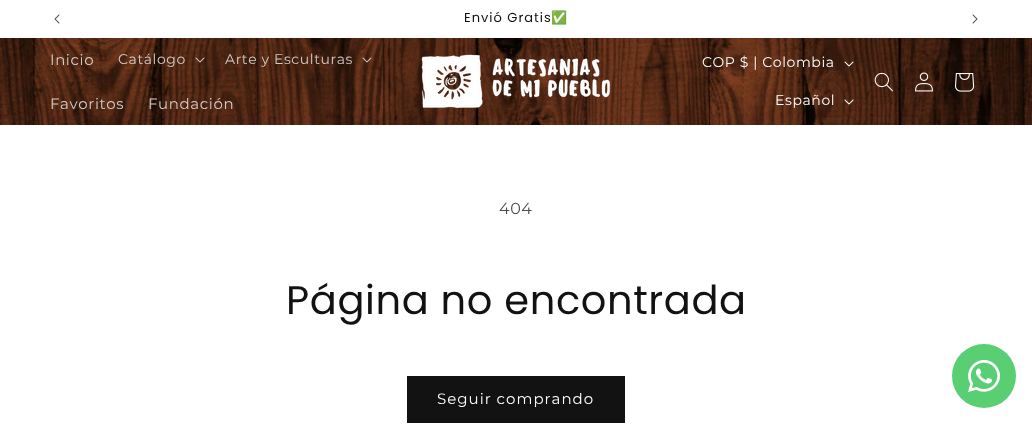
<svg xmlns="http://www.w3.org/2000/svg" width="1032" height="424">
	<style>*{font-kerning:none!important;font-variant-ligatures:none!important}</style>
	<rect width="100%" height="100%" fill="#FFFFFF" />
	<image x="54" y="14" width="6" height="10" href="assets/img1.png" />
	<text x="464" y="22" font-family="Poppins" font-size="13" letter-spacing="1" fill="#121212">Envió Gratis</text>
	<text x="551" y="22" font-family="Noto Color Emoji" font-size="13" letter-spacing="1" fill="#121212">✅</text>
	<image x="972" y="14" width="6" height="10" href="assets/img2.png" />
	<image x="0" y="38" width="1032" height="87" href="assets/img3.png" />
	<text x="50" y="65" font-family="Montserrat" font-size="15" letter-spacing="0.6" fill="#D5CAC5">Inicio</text>
	<text x="118" y="64" font-family="Montserrat" font-size="14" letter-spacing="0.6" fill="#D5CAC5">Catálogo</text>
	<image x="195" y="57" width="10" height="6" href="assets/img4.png" />
	<text x="225" y="64" font-family="Montserrat" font-size="14" letter-spacing="0.6" fill="#D5CAC5">Arte y Esculturas</text>
	<image x="362" y="57" width="10" height="6" href="assets/img5.png" />
	<g font-family="Montserrat" font-size="15" letter-spacing="0.6" fill="#D5CAC5">
		<text x="50" y="109">Favoritos</text>
		<text x="148" y="109">Fundación</text>
	</g>
	<image x="421" y="54" width="190" height="54" href="assets/img6.png" />
	<text x="702" y="67" font-family="Montserrat" font-size="14" letter-spacing="0.6" fill="#FFFFFF">COP $ | Colombia</text>
	<image x="844" y="61" width="10" height="6" href="assets/img7.png" />
	<text x="775" y="105" font-family="Montserrat" font-size="14" letter-spacing="0.6" fill="#FFFFFF">Español</text>
	<image x="844" y="99" width="10" height="6" href="assets/img8.png" />
	<image x="874" y="72" width="19" height="20" href="assets/img9.png" />
	<image x="915" y="72" width="18" height="20" href="assets/img10.png" />
	<image x="955" y="73" width="20" height="19" href="assets/img11.png" />
	<text x="499" y="214" font-family="Montserrat" font-size="16" letter-spacing="0.6" fill="#4D4D4D">404</text>
	<text x="286" y="314" font-family="Poppins" font-size="40" letter-spacing="0.6" fill="#121212">Página no encontrada</text>
	<rect x="407" y="376" width="218" height="47" fill="#121212" />
	<text x="437" y="404" font-family="Montserrat" font-size="15" letter-spacing="1" fill="#FFFFFF">Seguir comprando</text>
	<circle cx="984" cy="376" r="32" fill="#59CE72" />
	<image x="968" y="360" width="32" height="32" href="assets/img12.png" />
</svg>
